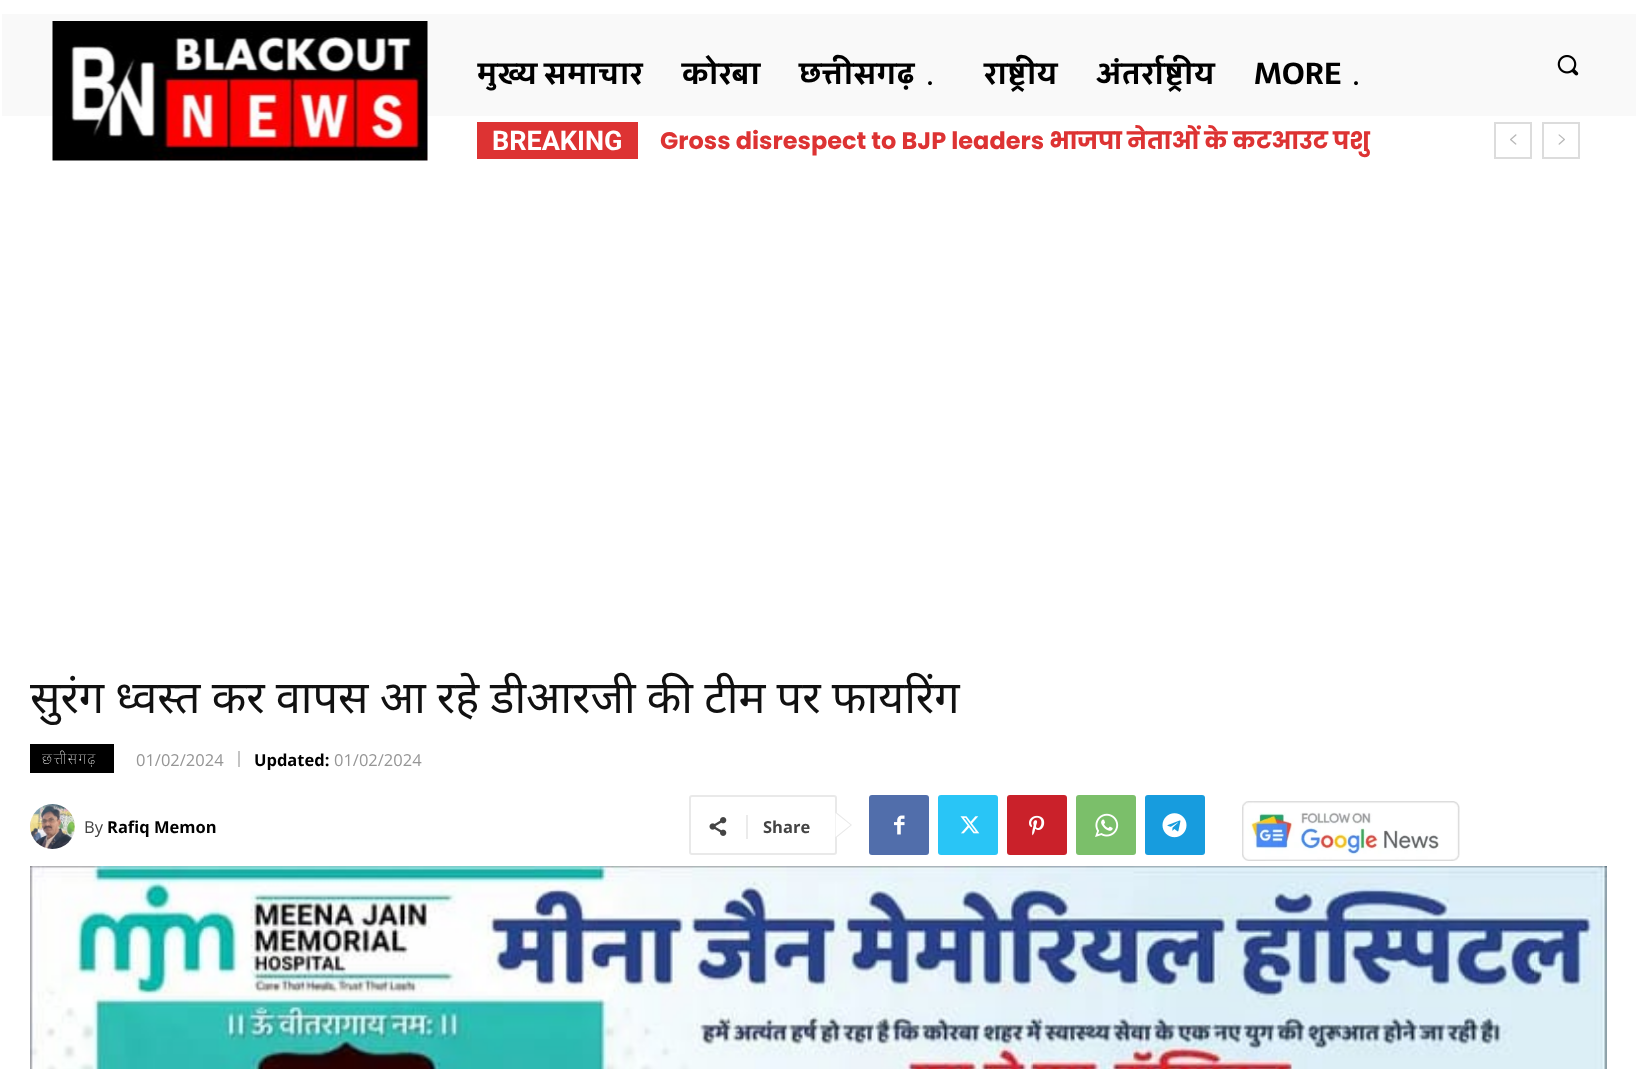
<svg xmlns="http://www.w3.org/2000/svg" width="1636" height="1069">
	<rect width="100%" height="100%" fill="#FFFFFF" />
	<rect x="2" y="14" width="1634" height="102" fill="#F9F9F9" />
	<image x="52" y="21" width="376" height="140" href="assets/img1.png" />
	<g font-family="Sarala" font-size="30" font-weight="700" fill="#000000">
		<text x="477" y="84">मुख्य समाचार</text>
		<text x="682" y="84">कोरबा</text>
		<text x="799" y="84">छत्तीसगढ़</text>
	</g>
	<image x="928" y="81" width="4" height="5" href="assets/img2.png" />
	<g font-family="Sarala" font-size="30" font-weight="700" fill="#000000">
		<text x="984" y="84">राष्ट्रीय</text>
		<text x="1096" y="84">अंतर्राष्ट्रीय</text>
		<text x="1254" y="84">MORE</text>
	</g>
	<image x="1354" y="81" width="4" height="5" href="assets/img2.png" />
	<image x="1557" y="55" width="22" height="21" href="assets/img3.png" />
	<rect x="477" y="122" width="161" height="37" fill="#DD3333" />
	<text x="492" y="150" font-family="Roboto" font-size="27" font-weight="700" fill="#FFFFFF">BREAKING</text>
	<text x="660" y="149" font-family="Poppins" font-size="24" font-weight="700" fill="#DD3333">Gross disrespect to BJP leaders भाजपा नेताओं के कटआउट पशु</text>
	<rect x="1495" y="123" width="36" height="35" fill="none" stroke="#DCDCDC" stroke-width="2" />
	<image x="1510" y="134" width="7" height="11" href="assets/img4.png" />
	<rect x="1543" y="123" width="36" height="35" fill="none" stroke="#DCDCDC" stroke-width="2" />
	<image x="1558" y="134" width="7" height="11" href="assets/img5.png" />
	<text x="30" y="713" word-spacing="-0.5" font-family="Noto Sans" font-size="45" fill="#111111">सुरंग ध्वस्त कर वापस आ रहे डीआरजी की टीम पर फायरिंग</text>
	<rect x="30" y="744" width="84" height="29" fill="#000000" />
	<text x="42" y="764" font-family="Noto Sans" font-size="15" font-weight="100" letter-spacing="1.5" fill="#FFFFFF">छत्तीसगढ़</text>
	<text x="136" y="766" font-family="Open Sans" font-size="16.5" fill="#969696">01/02/2024</text>
	<rect x="238" y="751" width="2" height="16" fill="#C4C4C4" />
	<text x="254" y="766" font-family="Open Sans" font-size="16.5" font-weight="700" fill="#000000">Updated:</text>
	<text x="334" y="766" font-family="Open Sans" font-size="16.5" fill="#969696">01/02/2024</text>
	<image x="30" y="804" width="45" height="45" href="assets/img6.png" />
	<text x="84" y="833" font-family="Open Sans" font-size="16.5" fill="#444444">By</text>
	<text x="107" y="833" font-family="Open Sans" font-size="16.5" font-weight="700" fill="#000000">Rafiq Memon</text>
	<rect x="690" y="796" width="146" height="58" rx="2" fill="none" stroke="#E9E9E9" stroke-width="2" />
	<path d="M835.5 838.5V811.5L852 825Z" fill="#E9E9E9" />
	<image x="709" y="817" width="18" height="19" href="assets/img7.png" />
	<rect x="746" y="815" width="2" height="24" fill="#EBEBEB" />
	<text x="763" y="833" font-family="Open Sans" font-size="16.5" font-weight="700" fill="#444444">Share</text>
	<path d="M835.5 837V813L850.5 825Z" fill="#FFFFFF" />
	<rect x="869" y="795" width="60" height="60" rx="3" fill="#516EAB" />
	<image x="894" y="815" width="11" height="20" href="assets/img8.png" />
	<rect x="938" y="795" width="60" height="60" rx="3" fill="#29C5F6" />
	<image x="960" y="816" width="20" height="18" href="assets/img9.png" />
	<rect x="1007" y="795" width="60" height="60" rx="3" fill="#CA212A" />
	<image x="1029" y="815" width="16" height="21" href="assets/img10.png" />
	<rect x="1076" y="795" width="60" height="60" rx="3" fill="#7BBF6A" />
	<image x="1095" y="813" width="24" height="24" href="assets/img11.png" />
	<rect x="1145" y="795" width="60" height="60" rx="3" fill="#179CDE" />
	<image x="1162" y="813" width="25" height="25" href="assets/img12.png" />
	<image x="1242" y="801" width="218" height="60" href="assets/img13.png" />
	<image x="30" y="866" width="1577" height="203" href="assets/img14.png" />
</svg>
